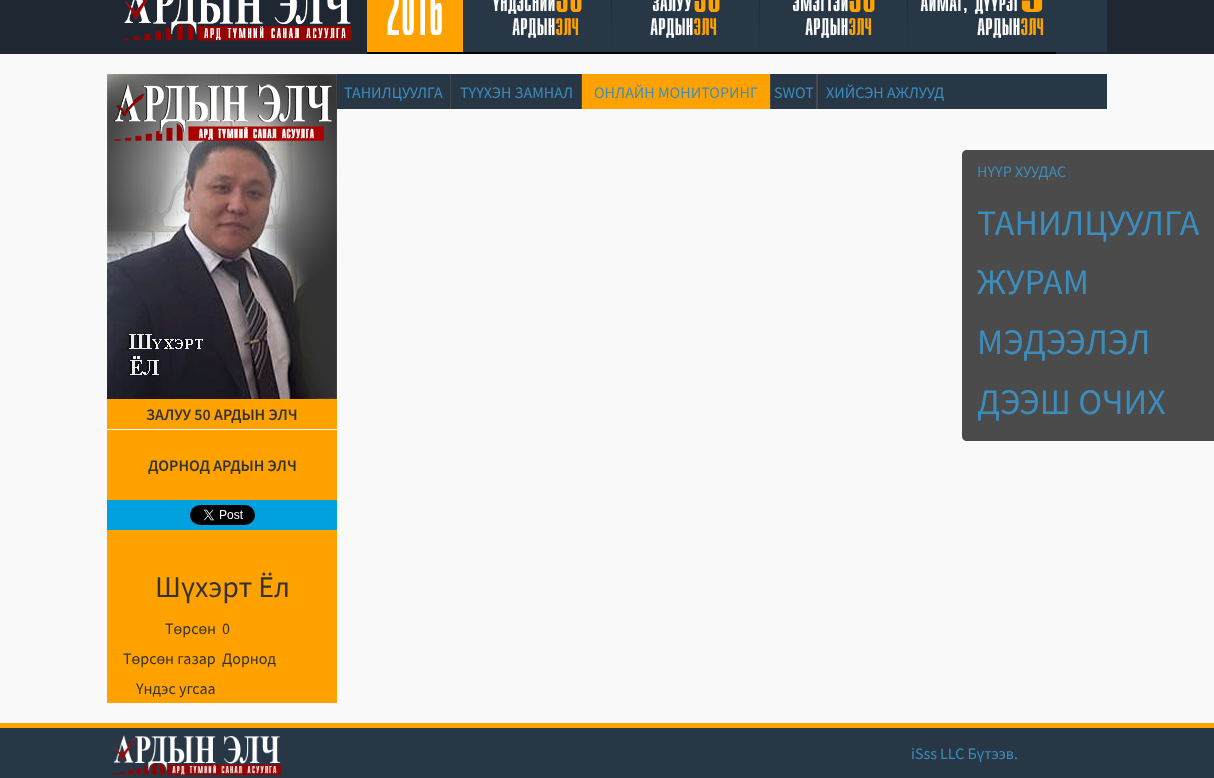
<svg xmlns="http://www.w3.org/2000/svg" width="1214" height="778">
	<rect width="100%" height="100%" fill="#F9F9F9" />
	<rect x="0" y="0" width="1214" height="54" fill="#1F2732" />
	<image x="122" y="0" width="230" height="41" href="assets/img1.png" />
	<rect x="367" y="0" width="96" height="52" fill="#FFA200" />
	<image x="387" y="0" width="55" height="35" href="assets/img2.png" />
	<image x="463" y="0" width="1" height="52" href="assets/img3.png" />
	<rect x="464" y="0" width="147" height="52" fill="#273746" />
	<image x="493" y="0" width="89" height="38" href="assets/img4.png" />
	<image x="611" y="0" width="1" height="52" href="assets/img3.png" />
	<rect x="612" y="0" width="147" height="52" fill="#273746" />
	<image x="650" y="0" width="70" height="38" href="assets/img5.png" />
	<image x="759" y="0" width="1" height="52" href="assets/img3.png" />
	<rect x="760" y="0" width="147" height="52" fill="#273746" />
	<image x="792" y="0" width="83" height="38" href="assets/img6.png" />
	<image x="907" y="0" width="1" height="52" href="assets/img3.png" />
	<rect x="908" y="0" width="199" height="52" fill="#273746" />
	<image x="920" y="0" width="124" height="38" href="assets/img7.png" />
	<rect x="367" y="52" width="689" height="2" fill="#000000" />
	<rect x="337" y="74" width="113" height="35" fill="#273746" />
	<text x="344" y="98" font-family="Source Sans Pro" font-size="16" fill="#3C8DBC">ТАНИЛЦУУЛГА</text>
	<rect x="450" y="74" width="1" height="35" fill="#494949" />
	<rect x="451" y="74" width="130" height="35" fill="#273746" />
	<text x="460" y="98" font-family="Source Sans Pro" font-size="16" fill="#3C8DBC">ТҮҮХЭН ЗАМНАЛ</text>
	<rect x="581" y="74" width="1" height="35" fill="#494949" />
	<rect x="582" y="74" width="188" height="35" fill="#FFA200" />
	<text x="594" y="98" font-family="Source Sans Pro" font-size="16" fill="#3C8DBC">ОНЛАЙН МОНИТОРИНГ</text>
	<rect x="770" y="74" width="1" height="35" fill="#494949" />
	<rect x="771" y="74" width="45" height="35" fill="#273746" />
	<text x="774" y="98" font-family="Source Sans Pro" font-size="16" fill="#3C8DBC">SWOT</text>
	<rect x="816" y="74" width="2" height="35" fill="#494949" />
	<rect x="818" y="74" width="289" height="35" fill="#273746" />
	<text x="826" y="98" font-family="Source Sans Pro" font-size="16" fill="#3C8DBC">ХИЙСЭН АЖЛУУД</text>
	<rect x="107" y="399" width="230" height="304" fill="#FFA200" />
	<image x="107" y="74" width="230" height="325" href="assets/img8.png" />
	<text x="146" y="420" font-family="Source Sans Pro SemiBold" font-size="16" font-weight="600" fill="#333333">ЗАЛУУ 50 АРДЫН ЭЛЧ</text>
	<rect x="107" y="429" width="230" height="1" fill="#FFFFFF" />
	<text x="148" y="471" font-family="Source Sans Pro SemiBold" font-size="16" font-weight="600" fill="#333333">ДОРНОД АРДЫН ЭЛЧ</text>
	<rect x="107" y="500" width="230" height="30" fill="#00A1DE" />
	<image x="190" y="505" width="65" height="20" href="assets/img9.png" />
	<text x="155" y="597" font-family="Source Sans Pro" font-size="30" fill="#333333">Шүхэрт Ёл</text>
	<g font-family="Source Sans Pro" font-size="16" fill="#333333">
		<text x="165" y="634">Төрсөн</text>
		<text x="222" y="634">0</text>
		<text x="123" y="664">Төрсөн газар</text>
		<text x="222" y="664">Дорнод</text>
		<text x="136" y="694">Үндэс угсаа</text>
	</g>
	<path d="M967 150H1214V441H967C964 441 962 439 962 436V155C962 152 964 150 967 150Z" fill="#4B4B4B" />
	<text x="977" y="177" font-family="Source Sans Pro" font-size="16" fill="#3C8DBC">НҮҮР ХУУДАС</text>
	<g font-family="Source Sans Pro" font-size="36" fill="#3C8DBC">
		<text x="977" y="235">ТАНИЛЦУУЛГА</text>
		<text x="977" y="294">ЖУРАМ</text>
		<text x="977" y="354">МЭДЭЭЛЭЛ</text>
		<text x="977" y="414">ДЭЭШ ОЧИХ</text>
	</g>
	<rect x="0" y="723" width="1214" height="5" fill="#FFA200" />
	<rect x="0" y="728" width="1214" height="50" fill="#273746" />
	<image x="112" y="735" width="170" height="40" href="assets/img10.png" />
	<text x="911" y="759" font-family="Source Sans Pro" font-size="16" fill="#3C8DBC">iSss LLC Бүтээв.</text>
</svg>
